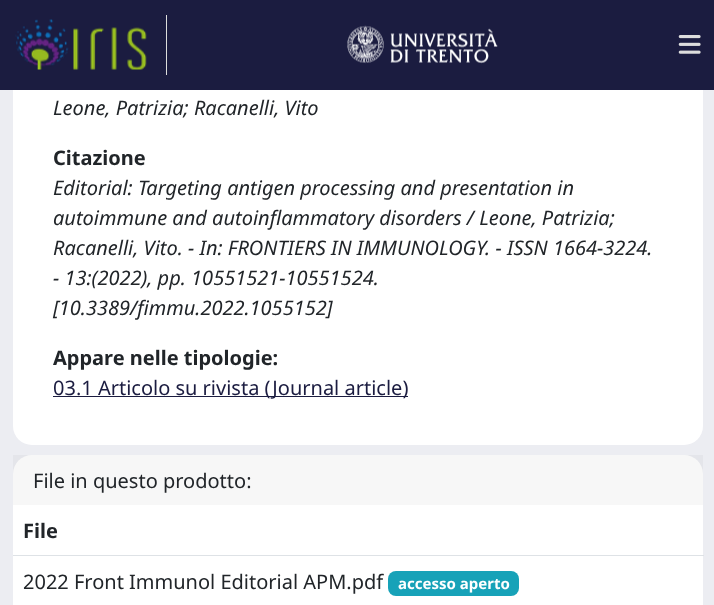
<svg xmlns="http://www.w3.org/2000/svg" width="714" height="605">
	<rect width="100%" height="100%" fill="#ECEDF2" />
	<rect x="13" y="-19" width="690" height="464" rx="19" fill="#FFFFFF" />
	<rect x="0" y="0" width="714" height="90" fill="#1B1C40" />
	<rect x="166" y="15" width="1" height="60" fill="#DDDDDD" />
	<image x="15" y="19" width="132" height="51" href="assets/img1.png" />
	<image x="347" y="25" width="151" height="39" href="assets/img2.png" />
	<image x="678" y="35" width="23" height="19" href="assets/img3.png" />
	<text x="53" y="115" font-family="Noto Sans" font-size="20" font-style="italic" fill="#212529">Leone, Patrizia; Racanelli, Vito</text>
	<text x="53" y="165" font-family="Noto Sans" font-size="20" font-weight="700" fill="#212529">Citazione</text>
	<g font-family="Noto Sans" font-size="20" font-style="italic" fill="#212529">
		<text x="53" y="195">Editorial: Targeting antigen processing and presentation in</text>
		<text x="53" y="225">autoimmune and autoinflammatory disorders / Leone, Patrizia;</text>
		<text x="53" y="255">Racanelli, Vito. - In: FRONTIERS IN IMMUNOLOGY. - ISSN 1664-3224.</text>
		<text x="53" y="285">- 13:(2022), pp. 10551521-10551524.</text>
		<text x="53" y="315">[10.3389/fimmu.2022.1055152]</text>
	</g>
	<text x="53" y="365" font-family="Noto Sans" font-size="20" font-weight="700" fill="#212529">Appare nelle tipologie:</text>
	<rect x="53" y="396" width="355" height="1" fill="#1B1C40" />
	<text x="53" y="395" font-family="Noto Sans" font-size="20" fill="#1B1C40">03.1 Articolo su rivista (Journal article)</text>
	<rect x="13" y="455" width="690" height="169" rx="19" fill="#FFFFFF" />
	<rect x="13" y="455" width="690" height="50" fill="#000000" fill-opacity="0.03" />
	<text x="33" y="488" font-family="Noto Sans" font-size="20" fill="#212529">File in questo prodotto:</text>
	<rect x="13" y="555" width="691" height="1" fill="#DEE2E6" />
	<text x="23" y="538" font-family="Noto Sans" font-size="20" font-weight="700" fill="#212529">File</text>
	<text x="23" y="589" font-family="Noto Sans" font-size="20" fill="#212529">2022 Front Immunol Editorial APM.pdf</text>
	<rect x="388" y="571" width="131" height="25" rx="8" fill="#17A2B8" />
	<text x="398" y="589" font-family="Noto Sans" font-size="15" font-weight="700" fill="#FFFFFF">accesso aperto</text>
</svg>
